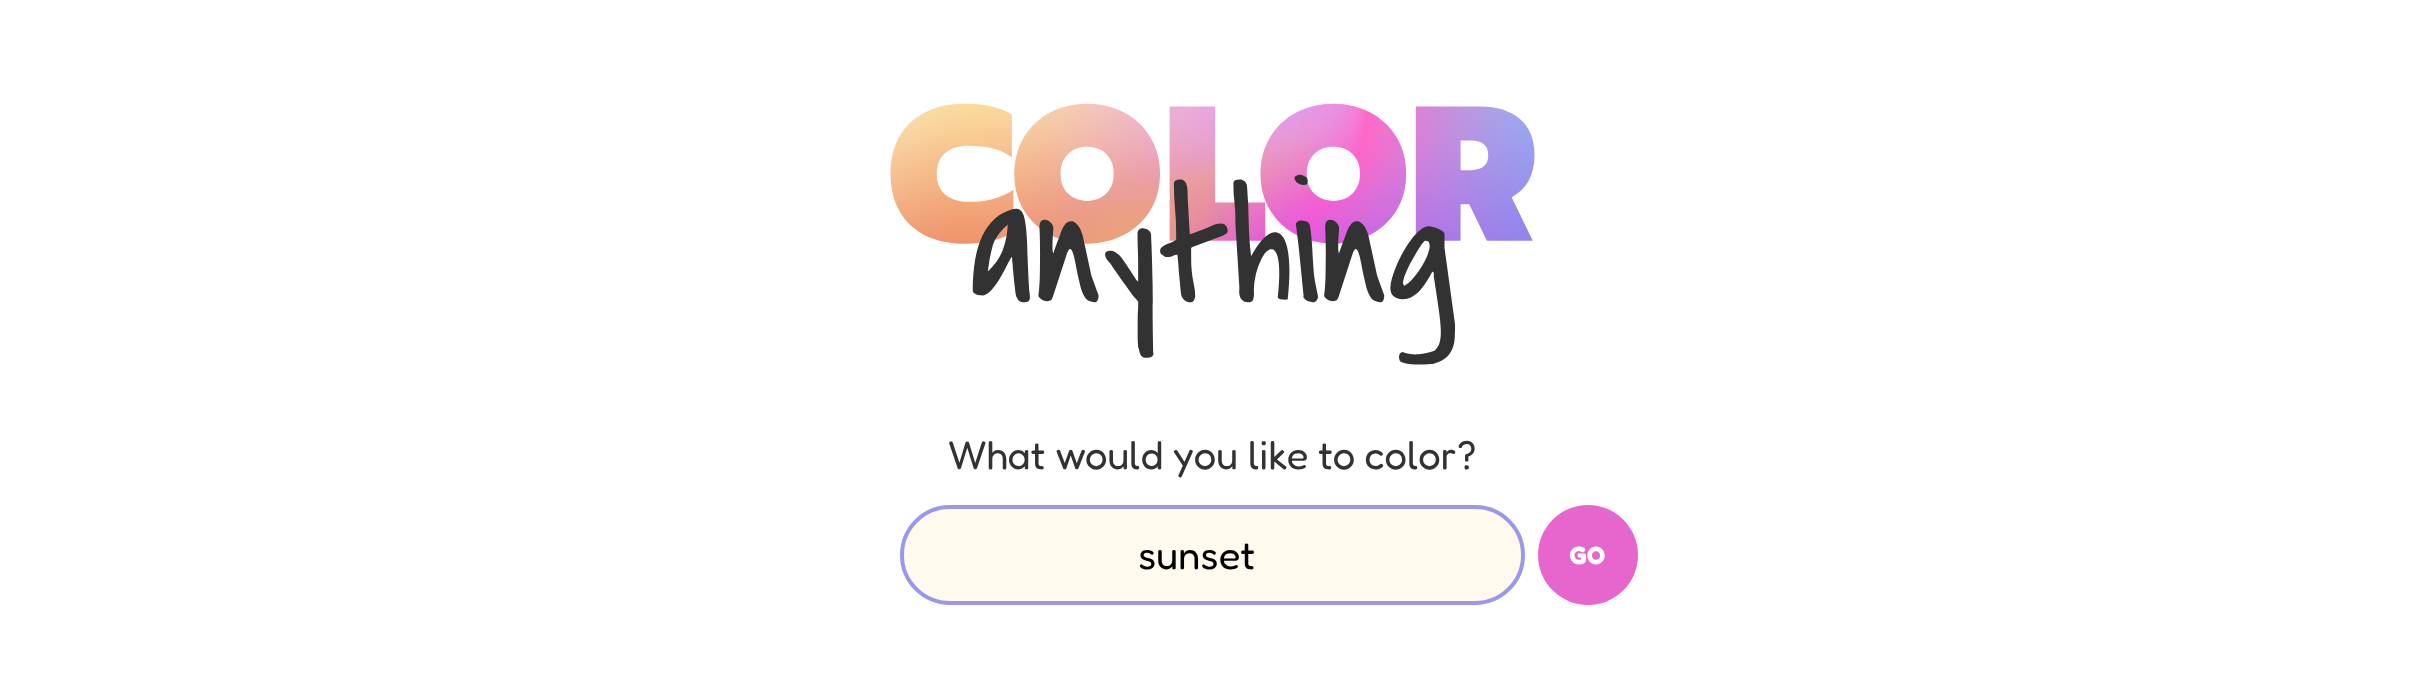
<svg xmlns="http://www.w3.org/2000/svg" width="2424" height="676">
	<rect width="100%" height="100%" fill="#FFFFFF" />
	<image x="890" y="103" width="645" height="262" href="assets/img1.png" />
	<text x="948" y="469" font-family="Fredoka" font-size="40" fill="#323232">What would you like to color?</text>
	<rect x="902" y="507" width="621" height="96" rx="48" fill="#FFF9EE" stroke="#9B98EC" stroke-width="4" />
	<text x="1138" y="569" font-family="Fredoka" font-size="40" fill="#000000">sunset</text>
	<circle cx="1588" cy="555" r="50" fill="#E666CE" />
	<text x="1569" y="564" font-family="Fredoka" font-size="25" font-weight="700" fill="#FFFFFF">GO</text>
</svg>
